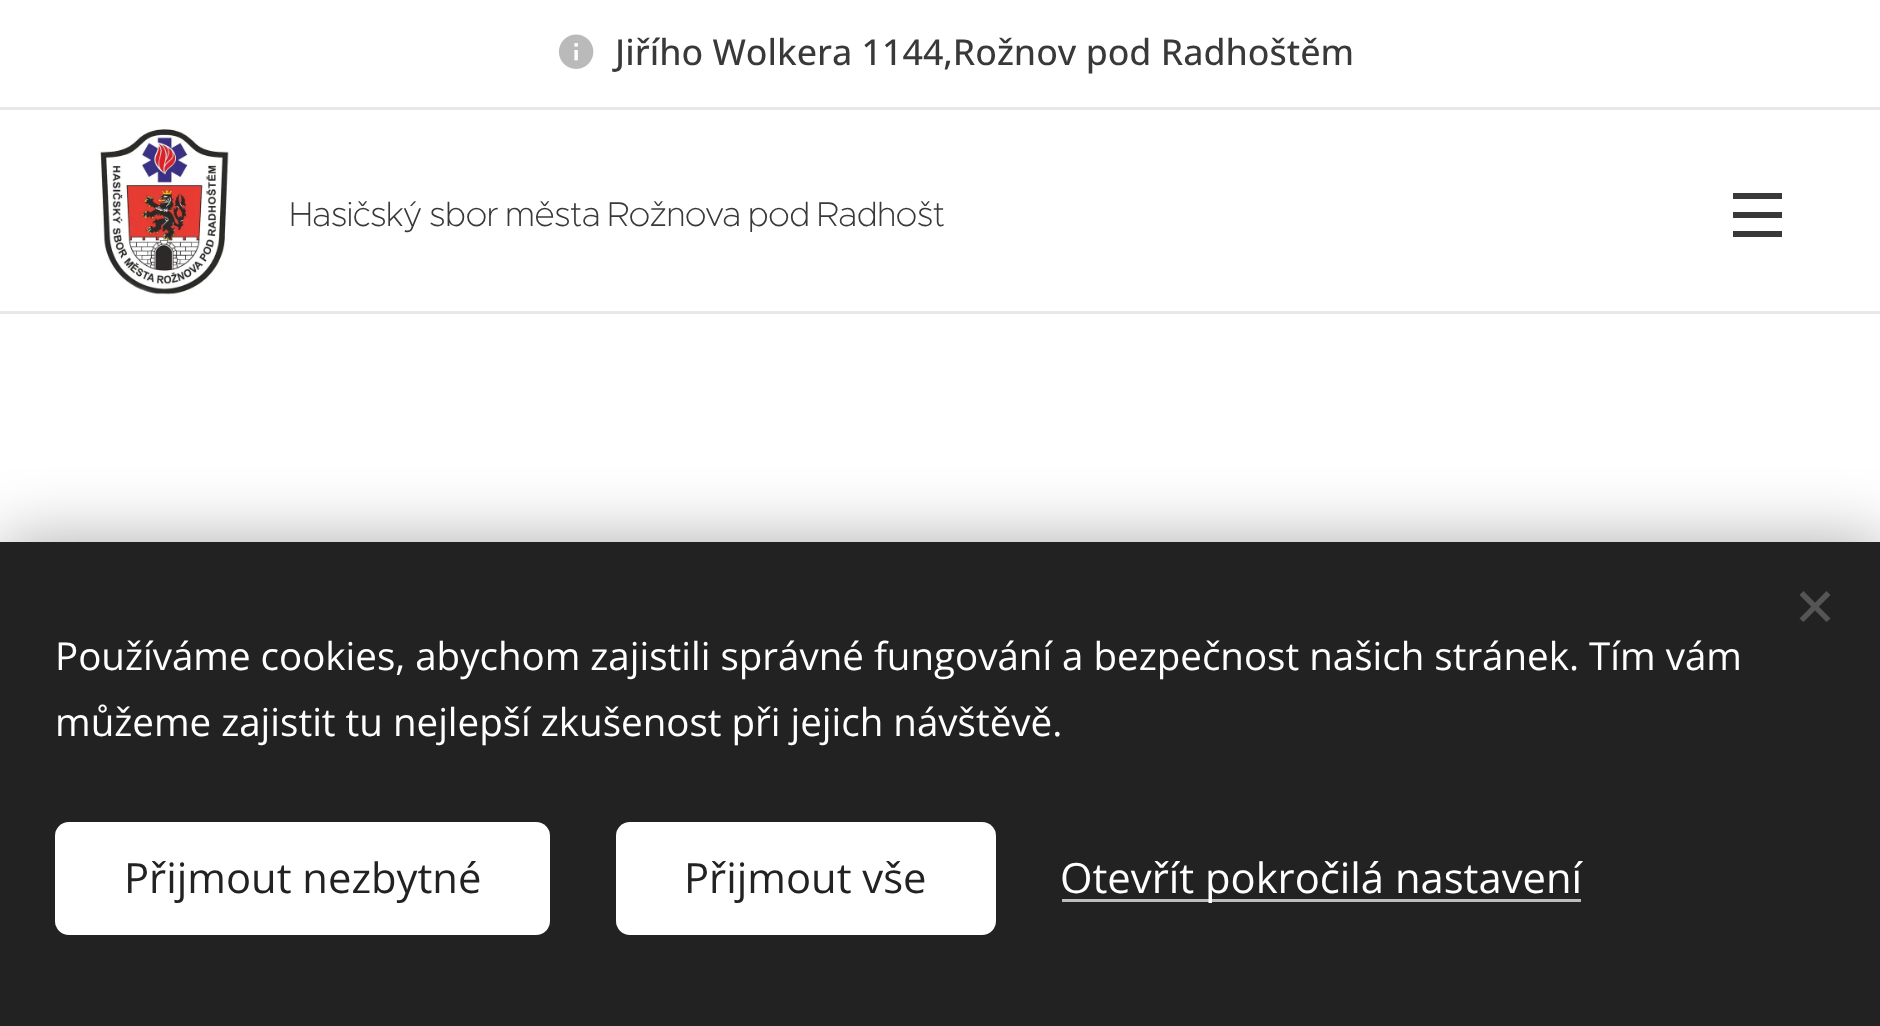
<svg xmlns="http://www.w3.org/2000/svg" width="1880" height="1026">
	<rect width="100%" height="100%" fill="#FFFFFF" />
	<image x="558" y="34" width="36" height="35" href="assets/img1.png" />
	<text x="615" y="65" font-family="Open Sans" font-size="35.75" font-weight="500" fill="#393939">Jiřího Wolkera 1144,Rožnov pod Radhoštěm</text>
	<rect x="0" y="107" width="1880" height="3" fill="#E8E8E8" />
	<image x="100" y="129" width="129" height="166" href="assets/img2.png" />
	<text x="289" y="226" word-spacing="-2" font-family="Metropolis" font-size="34.6" font-weight="200" letter-spacing="-0.9" fill="#393939">Hasičský sbor města Rožnova pod Radhošt</text>
	<rect x="1733" y="212" width="49" height="6" fill="#393939" />
	<rect x="1733" y="193" width="49" height="6" fill="#393939" />
	<rect x="1733" y="231" width="49" height="6" fill="#393939" />
	<rect x="0" y="311" width="1880" height="3" fill="#E8E8E8" />
	<rect x="0" y="542" width="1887" height="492" fill="#000000" fill-opacity="0.33" filter="blur(34.5px)" />
	<rect x="0" y="542" width="1880" height="484" fill="#222222" />
	<path d="M1799.5 618.5L1826.5 591L1830.5 595L1803.5 622Z" fill="#555555" />
	<path d="M1803.5 591L1830.5 618.5L1826.5 622L1799.5 595Z" fill="#555555" />
	<g font-family="Open Sans" font-size="38.5" fill="#FFFFFF">
		<text x="55" y="670">Používáme cookies, abychom zajistili správné fungování a bezpečnost našich stránek. Tím vám</text>
		<text x="55" y="736">můžeme zajistit tu nejlepší zkušenost při jejich návštěvě.</text>
	</g>
	<rect x="55" y="822" width="495" height="113" rx="14" fill="#FFFFFF" />
	<text x="124" y="893" font-family="Open Sans" font-size="41.75" fill="#222222">Přijmout nezbytné</text>
	<rect x="616" y="822" width="380" height="113" rx="14" fill="#FFFFFF" />
	<text x="684" y="893" font-family="Open Sans" font-size="41.75" fill="#222222">Přijmout vše</text>
	<rect x="1062" y="899" width="519" height="3" fill="#BDBDBD" />
	<text x="1060" y="893" font-family="Open Sans" font-size="41.75" fill="#FFFFFF">Otevřít pokročilá nastavení</text>
</svg>
